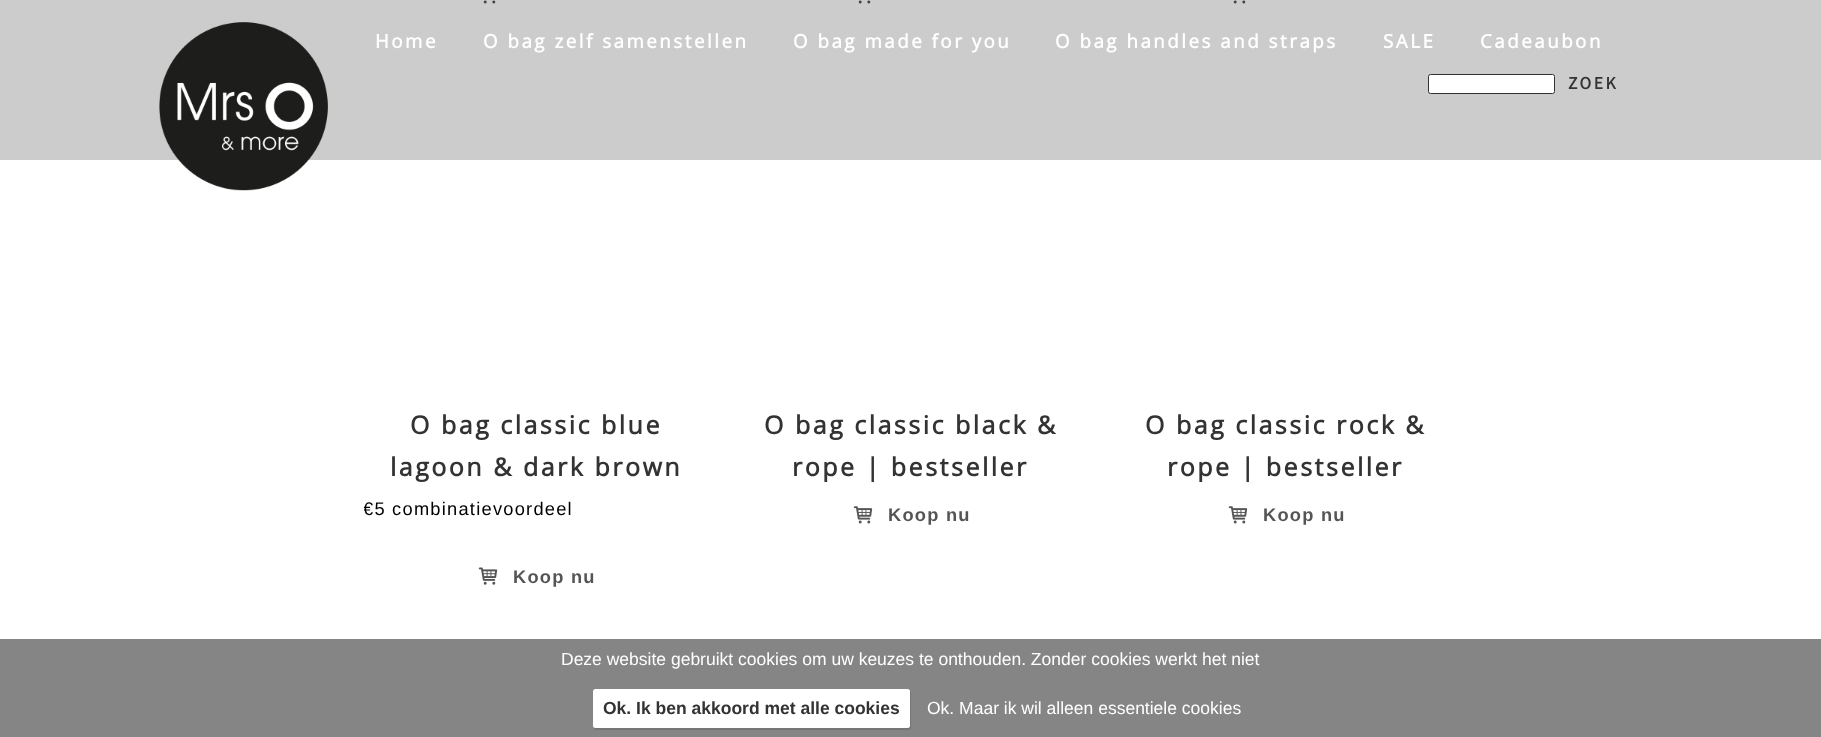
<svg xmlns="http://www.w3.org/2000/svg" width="1821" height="737">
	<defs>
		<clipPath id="clip1"><rect x="364" y="398" width="345" height="201" /></clipPath>
	</defs>
	<rect width="100%" height="100%" fill="#FFFFFF" />
	<rect x="0" y="0" width="1821" height="160" fill="#CCCCCC" />
	<image x="159" y="22" width="169" height="169" href="assets/img1.png" />
	<g font-family="Open Sans" font-size="18.75" font-weight="700" letter-spacing="2.5" fill="#FFFFFF">
		<text x="375" y="48">Home</text>
		<text x="483" y="48">O bag zelf samenstellen</text>
		<text x="793" y="48">O bag made for you</text>
		<text x="1055" y="48">O bag handles and straps</text>
		<text x="1383" y="48">SALE</text>
		<text x="1480" y="48">Cadeaubon</text>
	</g>
	<rect x="1428.5" y="74.5" width="126" height="19" rx="2" fill="#FFFFFF" stroke="#343333" />
	<text x="1568" y="89" font-family="Source Sans Pro" font-size="17.5" font-weight="700" letter-spacing="2.5" fill="#333333">ZOEK</text>
	<image x="483" y="0" width="13" height="4" href="assets/img2.png" />
	<image x="858" y="0" width="13" height="4" href="assets/img2.png" />
	<image x="1233" y="0" width="13" height="4" href="assets/img2.png" />
	<g font-family="Open Sans" font-size="25" font-weight="700" letter-spacing="2.5" fill="#333333">
		<text x="410" y="434">O bag classic blue</text>
		<text x="390" y="476">lagoon &amp; dark brown</text>
	</g>
	<g clip-path="url(#clip1)">
		<text x="363" y="515" font-family="Liberation Sans" font-size="18.25" letter-spacing="1.25" fill="#000000">€5 combinatievoordeel</text>
	</g>
	<image x="478" y="567" width="20" height="18" href="assets/img3.png" />
	<text x="513" y="583" font-family="Liberation Sans" font-size="18.25" font-weight="700" letter-spacing="1.25" fill="#555555">Koop nu</text>
	<g font-family="Open Sans" font-size="25" font-weight="700" letter-spacing="2.5" fill="#333333">
		<text x="764" y="434">O bag classic black &amp;</text>
		<text x="792" y="476">rope | bestseller</text>
	</g>
	<image x="853" y="506" width="20" height="18" href="assets/img4.png" />
	<text x="888" y="521" font-family="Liberation Sans" font-size="18.25" font-weight="700" letter-spacing="1.25" fill="#555555">Koop nu</text>
	<g font-family="Open Sans" font-size="25" font-weight="700" letter-spacing="2.5" fill="#333333">
		<text x="1145" y="434">O bag classic rock &amp;</text>
		<text x="1167" y="476">rope | bestseller</text>
	</g>
	<image x="1228" y="506" width="20" height="18" href="assets/img4.png" />
	<text x="1263" y="521" font-family="Liberation Sans" font-size="18.25" font-weight="700" letter-spacing="1.25" fill="#555555">Koop nu</text>
	<rect x="0" y="639" width="1821" height="98" fill="#858585" />
	<text x="561" y="665" font-family="Liberation Sans" font-size="17.5" fill="#FFFFFF">Deze website gebruikt cookies om uw keuzes te onthouden. Zonder cookies werkt het niet</text>
	<path d="M594 727C594 729 595 730 596 730H909L911 728V693L910 691V719C910 721 911 727 908 728Z" fill="#757575" />
	<rect x="593" y="689" width="317" height="39" rx="2.5" fill="#FFFFFF" />
	<text x="603" y="714" font-family="Liberation Sans" font-size="17.5" font-weight="700" fill="#333333">Ok. Ik ben akkoord met alle cookies</text>
	<text x="927" y="714" font-family="Liberation Sans" font-size="17.5" fill="#FFFFFF">Ok. Maar ik wil alleen essentiele cookies</text>
</svg>
